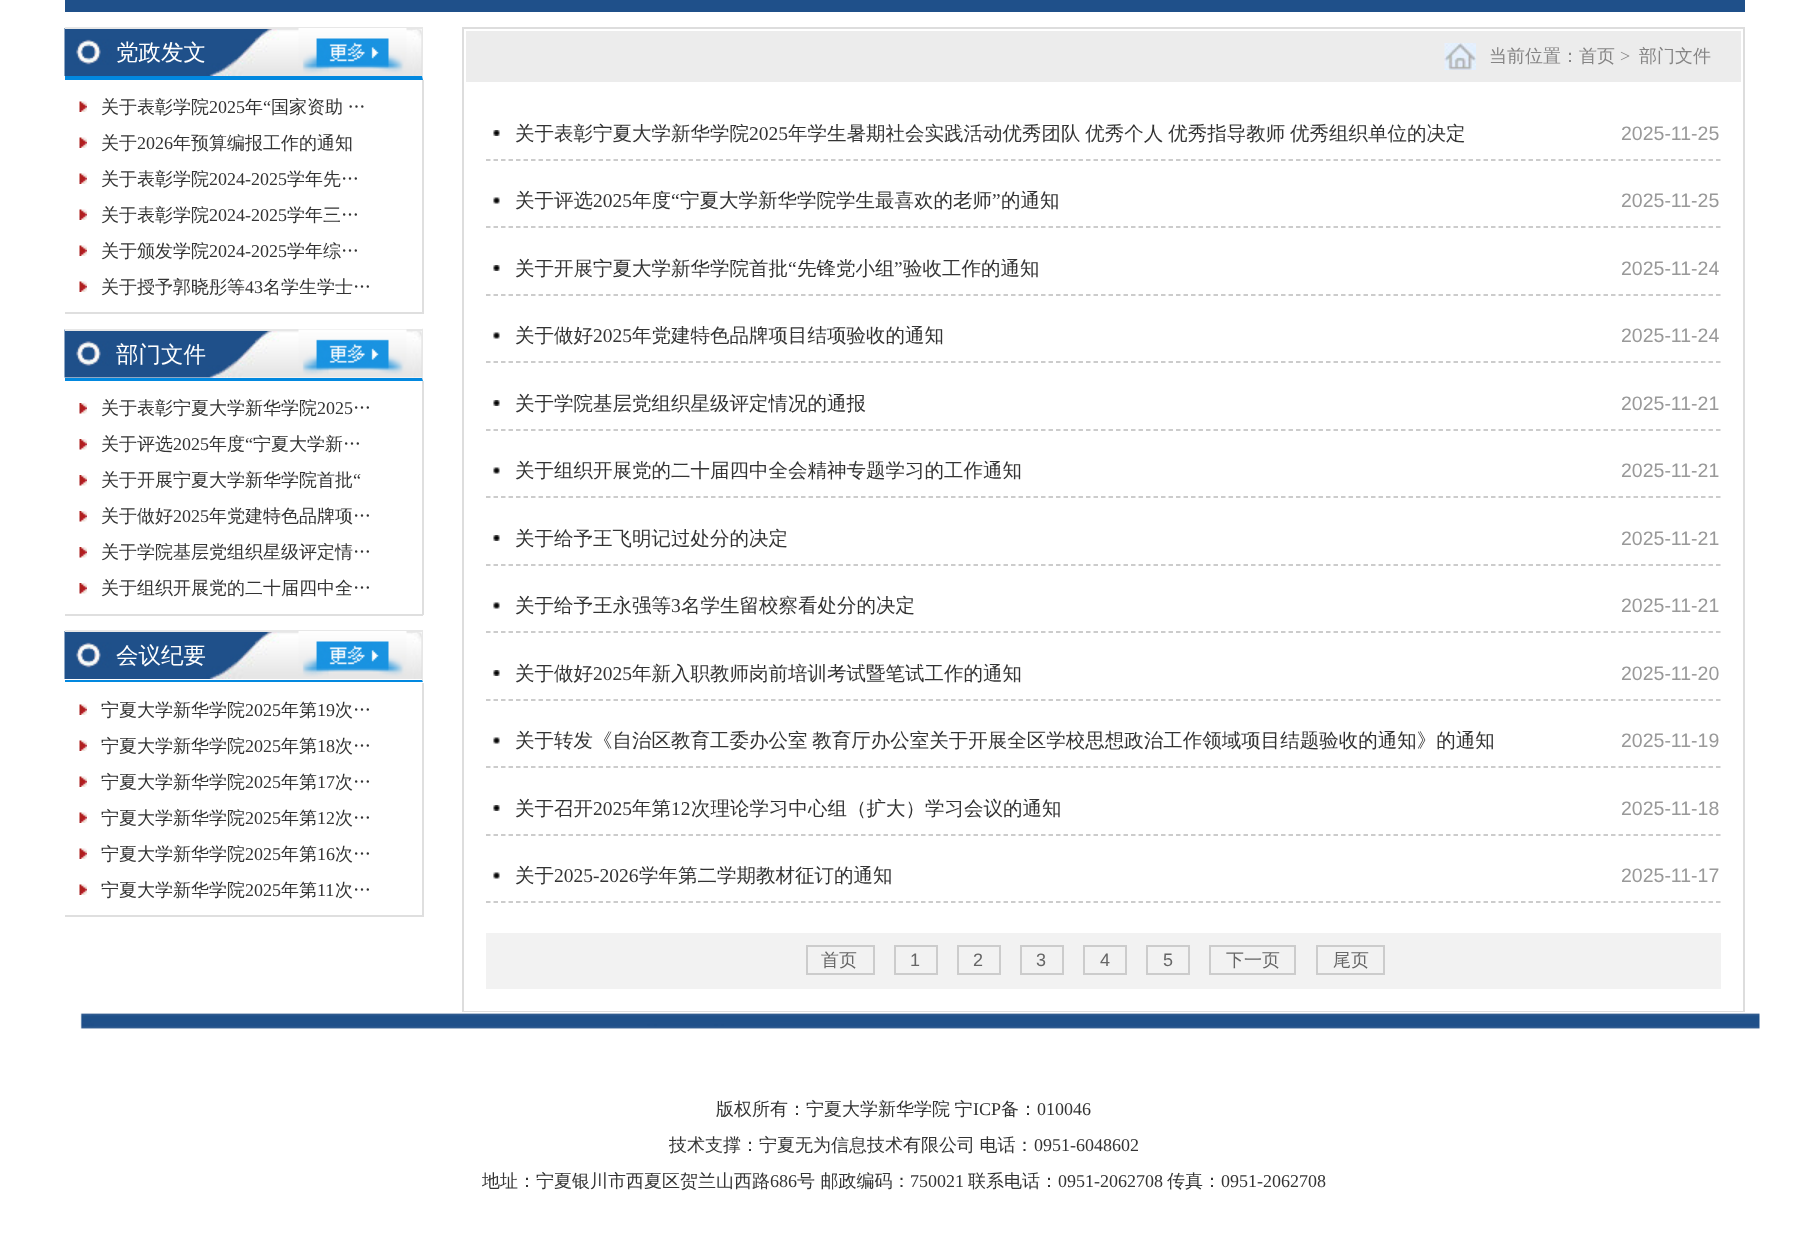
<svg xmlns="http://www.w3.org/2000/svg" width="1807" height="1250">
	<defs>
		<clipPath id="clip1"><rect x="65" y="12" width="1710" height="1034" /></clipPath>
	</defs>
	<rect width="100%" height="100%" fill="#FFFFFF" />
	<rect x="65" y="0" width="1680" height="12" fill="#1F508A" />
	<image x="64" y="28" width="358" height="48" href="assets/img1.png" />
	<rect x="65" y="27" width="358" height="2" fill="#E7E7E7" />
	<path d="M423 27V80L422 76V28Z" fill="#E7E7E7" />
	<g clip-path="url(#clip1)">
		<path d="M423 80H63L64 76H422Z" fill="#0288DF" />
	</g>
	<text x="116" y="60" font-family="WenQuanYi Zen Hei" font-size="22.5" font-weight="500" fill="#FFFFFF">党政发文</text>
	<image x="298" y="28" width="109" height="46" href="assets/img2.png" />
	<rect x="422" y="80" width="2" height="234" fill="#DFDFDF" />
	<rect x="65" y="312" width="358" height="2" fill="#DFDFDF" />
	<image x="79" y="101" width="8" height="11" href="assets/img3.png" />
	<text x="101" y="113" font-family="WenQuanYi Zen Hei" font-size="18" font-weight="500" fill="#333333">关于表彰学院</text>
	<text x="209" y="113" font-family="Liberation Serif" font-size="18" fill="#333333">2025</text>
	<text x="245" y="113" font-family="WenQuanYi Zen Hei" font-size="18" font-weight="500" fill="#333333">年</text>
	<text x="263" y="113" font-family="Liberation Serif" font-size="18" fill="#333333">“</text>
	<text x="271" y="113" word-spacing="-1" font-family="WenQuanYi Zen Hei" font-size="18" font-weight="500" fill="#333333">国家资助 …</text>
	<image x="79" y="137" width="8" height="11" href="assets/img3.png" />
	<text x="101" y="149" font-family="WenQuanYi Zen Hei" font-size="18" font-weight="500" fill="#333333">关于</text>
	<text x="137" y="149" font-family="Liberation Serif" font-size="18" fill="#333333">2026</text>
	<text x="173" y="149" font-family="WenQuanYi Zen Hei" font-size="18" font-weight="500" fill="#333333">年预算编报工作的通知</text>
	<image x="79" y="173" width="8" height="11" href="assets/img3.png" />
	<text x="101" y="185" font-family="WenQuanYi Zen Hei" font-size="18" font-weight="500" fill="#333333">关于表彰学院</text>
	<text x="209" y="185" font-family="Liberation Serif" font-size="18" fill="#333333">2024-2025</text>
	<text x="287" y="185" font-family="WenQuanYi Zen Hei" font-size="18" font-weight="500" fill="#333333">学年先…</text>
	<image x="79" y="209" width="8" height="11" href="assets/img3.png" />
	<text x="101" y="221" font-family="WenQuanYi Zen Hei" font-size="18" font-weight="500" fill="#333333">关于表彰学院</text>
	<text x="209" y="221" font-family="Liberation Serif" font-size="18" fill="#333333">2024-2025</text>
	<text x="287" y="221" word-spacing="-1" font-family="WenQuanYi Zen Hei" font-size="18" font-weight="500" fill="#333333">学年三…</text>
	<image x="79" y="245" width="8" height="11" href="assets/img3.png" />
	<text x="101" y="257" font-family="WenQuanYi Zen Hei" font-size="18" font-weight="500" fill="#333333">关于颁发学院</text>
	<text x="209" y="257" font-family="Liberation Serif" font-size="18" fill="#333333">2024-2025</text>
	<text x="287" y="257" font-family="WenQuanYi Zen Hei" font-size="18" font-weight="500" fill="#333333">学年综…</text>
	<image x="79" y="281" width="8" height="11" href="assets/img3.png" />
	<text x="101" y="293" font-family="WenQuanYi Zen Hei" font-size="18" font-weight="500" fill="#333333">关于授予郭晓彤等</text>
	<text x="245" y="293" font-family="Liberation Serif" font-size="18" fill="#333333">43</text>
	<text x="263" y="293" font-family="WenQuanYi Zen Hei" font-size="18" font-weight="500" fill="#333333">名学生学士…</text>
	<image x="64" y="329" width="358" height="49" href="assets/img4.png" />
	<rect x="65" y="329" width="358" height="2" fill="#E7E7E7" />
	<path d="M423 328V381L422 378V330Z" fill="#E7E7E7" />
	<g clip-path="url(#clip1)">
		<path d="M423 381H63L64 378H422Z" fill="#0288DF" />
	</g>
	<text x="116" y="362" font-family="WenQuanYi Zen Hei" font-size="22.5" font-weight="500" fill="#FFFFFF">部门文件</text>
	<image x="298" y="329" width="109" height="46" href="assets/img5.png" />
	<rect x="422" y="381" width="2" height="234" fill="#DFDFDF" />
	<rect x="65" y="614" width="358" height="2" fill="#DFDFDF" />
	<image x="79" y="403" width="8" height="11" href="assets/img6.png" />
	<text x="101" y="414" font-family="WenQuanYi Zen Hei" font-size="18" font-weight="500" fill="#333333">关于表彰宁夏大学新华学院</text>
	<text x="317" y="414" font-family="Liberation Serif" font-size="18" fill="#333333">2025</text>
	<text x="353" y="414" word-spacing="-1" font-family="WenQuanYi Zen Hei" font-size="18" font-weight="500" fill="#333333">…</text>
	<image x="79" y="439" width="8" height="11" href="assets/img6.png" />
	<text x="101" y="450" font-family="WenQuanYi Zen Hei" font-size="18" font-weight="500" fill="#333333">关于评选</text>
	<text x="173" y="450" font-family="Liberation Serif" font-size="18" fill="#333333">2025</text>
	<text x="209" y="450" font-family="WenQuanYi Zen Hei" font-size="18" font-weight="500" fill="#333333">年度</text>
	<text x="245" y="450" font-family="Liberation Serif" font-size="18" fill="#333333">“</text>
	<text x="253" y="450" font-family="WenQuanYi Zen Hei" font-size="18" font-weight="500" fill="#333333">宁夏大学新…</text>
	<image x="79" y="475" width="8" height="11" href="assets/img6.png" />
	<text x="101" y="486" font-family="WenQuanYi Zen Hei" font-size="18" font-weight="500" fill="#333333">关于开展宁夏大学新华学院首批</text>
	<text x="353" y="486" font-family="Liberation Serif" font-size="18" fill="#333333">“</text>
	<image x="79" y="511" width="8" height="11" href="assets/img6.png" />
	<text x="101" y="522" font-family="WenQuanYi Zen Hei" font-size="18" font-weight="500" fill="#333333">关于做好</text>
	<text x="173" y="522" font-family="Liberation Serif" font-size="18" fill="#333333">2025</text>
	<text x="209" y="522" font-family="WenQuanYi Zen Hei" font-size="18" font-weight="500" fill="#333333">年党建特色品牌项…</text>
	<image x="79" y="547" width="8" height="11" href="assets/img6.png" />
	<text x="101" y="558" font-family="WenQuanYi Zen Hei" font-size="18" font-weight="500" fill="#333333">关于学院基层党组织星级评定情…</text>
	<image x="79" y="583" width="8" height="11" href="assets/img6.png" />
	<text x="101" y="594" font-family="WenQuanYi Zen Hei" font-size="18" font-weight="500" fill="#333333">关于组织开展党的二十届四中全…</text>
	<image x="64" y="631" width="358" height="48" href="assets/img1.png" />
	<rect x="65" y="630" width="358" height="2" fill="#E7E7E7" />
	<path d="M423 630V682L422 680V632Z" fill="#E7E7E7" />
	<g clip-path="url(#clip1)">
		<path d="M423 682H63L64 680H422Z" fill="#0288DF" />
	</g>
	<text x="116" y="663" font-family="WenQuanYi Zen Hei" font-size="22.5" font-weight="500" fill="#FFFFFF">会议纪要</text>
	<image x="298" y="631" width="109" height="46" href="assets/img2.png" />
	<rect x="422" y="683" width="2" height="234" fill="#DFDFDF" />
	<rect x="65" y="915" width="358" height="2" fill="#DFDFDF" />
	<image x="79" y="704" width="8" height="11" href="assets/img3.png" />
	<text x="101" y="716" font-family="WenQuanYi Zen Hei" font-size="18" font-weight="500" fill="#333333">宁夏大学新华学院</text>
	<text x="245" y="716" font-family="Liberation Serif" font-size="18" fill="#333333">2025</text>
	<text x="281" y="716" font-family="WenQuanYi Zen Hei" font-size="18" font-weight="500" fill="#333333">年第</text>
	<text x="317" y="716" font-family="Liberation Serif" font-size="18" fill="#333333">19</text>
	<text x="335" y="716" font-family="WenQuanYi Zen Hei" font-size="18" font-weight="500" fill="#333333">次…</text>
	<image x="79" y="740" width="8" height="11" href="assets/img3.png" />
	<text x="101" y="752" font-family="WenQuanYi Zen Hei" font-size="18" font-weight="500" fill="#333333">宁夏大学新华学院</text>
	<text x="245" y="752" font-family="Liberation Serif" font-size="18" fill="#333333">2025</text>
	<text x="281" y="752" font-family="WenQuanYi Zen Hei" font-size="18" font-weight="500" fill="#333333">年第</text>
	<text x="317" y="752" font-family="Liberation Serif" font-size="18" fill="#333333">18</text>
	<text x="335" y="752" font-family="WenQuanYi Zen Hei" font-size="18" font-weight="500" fill="#333333">次…</text>
	<image x="79" y="776" width="8" height="11" href="assets/img3.png" />
	<text x="101" y="788" font-family="WenQuanYi Zen Hei" font-size="18" font-weight="500" fill="#333333">宁夏大学新华学院</text>
	<text x="245" y="788" font-family="Liberation Serif" font-size="18" fill="#333333">2025</text>
	<text x="281" y="788" font-family="WenQuanYi Zen Hei" font-size="18" font-weight="500" fill="#333333">年第</text>
	<text x="317" y="788" font-family="Liberation Serif" font-size="18" fill="#333333">17</text>
	<text x="335" y="788" font-family="WenQuanYi Zen Hei" font-size="18" font-weight="500" fill="#333333">次…</text>
	<image x="79" y="812" width="8" height="11" href="assets/img3.png" />
	<text x="101" y="824" font-family="WenQuanYi Zen Hei" font-size="18" font-weight="500" fill="#333333">宁夏大学新华学院</text>
	<text x="245" y="824" font-family="Liberation Serif" font-size="18" fill="#333333">2025</text>
	<text x="281" y="824" font-family="WenQuanYi Zen Hei" font-size="18" font-weight="500" fill="#333333">年第</text>
	<text x="317" y="824" font-family="Liberation Serif" font-size="18" fill="#333333">12</text>
	<text x="335" y="824" font-family="WenQuanYi Zen Hei" font-size="18" font-weight="500" fill="#333333">次…</text>
	<image x="79" y="848" width="8" height="11" href="assets/img3.png" />
	<text x="101" y="860" font-family="WenQuanYi Zen Hei" font-size="18" font-weight="500" fill="#333333">宁夏大学新华学院</text>
	<text x="245" y="860" font-family="Liberation Serif" font-size="18" fill="#333333">2025</text>
	<text x="281" y="860" font-family="WenQuanYi Zen Hei" font-size="18" font-weight="500" fill="#333333">年第</text>
	<text x="317" y="860" font-family="Liberation Serif" font-size="18" fill="#333333">16</text>
	<text x="335" y="860" font-family="WenQuanYi Zen Hei" font-size="18" font-weight="500" fill="#333333">次…</text>
	<image x="79" y="884" width="8" height="11" href="assets/img3.png" />
	<text x="101" y="896" font-family="WenQuanYi Zen Hei" font-size="18" font-weight="500" fill="#333333">宁夏大学新华学院</text>
	<text x="245" y="896" font-family="Liberation Serif" font-size="18" fill="#333333">2025</text>
	<text x="281" y="896" font-family="WenQuanYi Zen Hei" font-size="18" font-weight="500" fill="#333333">年第</text>
	<text x="317" y="896" font-family="Liberation Serif" font-size="18" fill="#333333">11</text>
	<text x="335" y="896" font-family="WenQuanYi Zen Hei" font-size="18" font-weight="500" fill="#333333">次…</text>
	<rect x="463" y="28" width="1281" height="984" fill="none" stroke="#DDDDDD" stroke-width="2" />
	<rect x="466" y="31" width="1275" height="51" fill="#ECECEC" />
	<image x="1444" y="43" width="32" height="27" href="assets/img7.png" />
	<text x="1489" y="62" font-family="WenQuanYi Zen Hei" font-size="18" font-weight="500" fill="#858484">当前位置：首页</text>
	<text x="1620" y="62" font-family="Liberation Serif" font-size="18" fill="#858484">&gt;</text>
	<text x="1639" y="62" font-family="WenQuanYi Zen Hei" font-size="18" font-weight="500" fill="#858484">部门文件</text>
	<image x="493" y="130" width="7" height="6" href="assets/img8.png" />
	<path d="M486 160H1720.5" fill="none" stroke="#BCBCBC" stroke-width="1.5" stroke-dasharray="4.5 3" />
	<text x="515" y="140" font-family="WenQuanYi Zen Hei" font-size="19.5" font-weight="500" fill="#333333">关于表彰宁夏大学新华学院</text>
	<text x="749" y="140" font-family="Liberation Serif" font-size="19.5" fill="#333333">2025</text>
	<text x="788" y="140" word-spacing="-1" font-family="WenQuanYi Zen Hei" font-size="19.5" font-weight="500" fill="#333333">年学生暑期社会实践活动优秀团队 优秀个人 优秀指导教师 优秀组织单位的决定</text>
	<text x="1621" y="140" font-family="Liberation Sans" font-size="19.5" fill="#999999">2025-11-25</text>
	<image x="493" y="197" width="7" height="7" href="assets/img9.png" />
	<path d="M486 227H1720.5" fill="none" stroke="#BCBCBC" stroke-width="1.5" stroke-dasharray="4.5 3" />
	<text x="515" y="207" font-family="WenQuanYi Zen Hei" font-size="19.5" font-weight="500" fill="#333333">关于评选</text>
	<text x="593" y="207" font-family="Liberation Serif" font-size="19.5" fill="#333333">2025</text>
	<text x="632" y="207" font-family="WenQuanYi Zen Hei" font-size="19.5" font-weight="500" fill="#333333">年度</text>
	<text x="671" y="207" font-family="Liberation Serif" font-size="19.5" fill="#333333">“</text>
	<text x="680" y="207" font-family="WenQuanYi Zen Hei" font-size="19.5" font-weight="500" fill="#333333">宁夏大学新华学院学生最喜欢的老师</text>
	<text x="992" y="207" font-family="Liberation Serif" font-size="19.5" fill="#333333">”</text>
	<text x="1001" y="207" font-family="WenQuanYi Zen Hei" font-size="19.5" font-weight="500" fill="#333333">的通知</text>
	<text x="1621" y="207" font-family="Liberation Sans" font-size="19.5" fill="#999999">2025-11-25</text>
	<image x="493" y="265" width="7" height="6" href="assets/img8.png" />
	<path d="M486 295H1720.5" fill="none" stroke="#BCBCBC" stroke-width="1.5" stroke-dasharray="4.5 3" />
	<text x="515" y="275" font-family="WenQuanYi Zen Hei" font-size="19.5" font-weight="500" fill="#333333">关于开展宁夏大学新华学院首批</text>
	<text x="788" y="275" font-family="Liberation Serif" font-size="19.5" fill="#333333">“</text>
	<text x="797" y="275" font-family="WenQuanYi Zen Hei" font-size="19.5" font-weight="500" fill="#333333">先锋党小组</text>
	<text x="894" y="275" font-family="Liberation Serif" font-size="19.5" fill="#333333">”</text>
	<text x="903" y="275" font-family="WenQuanYi Zen Hei" font-size="19.5" font-weight="500" fill="#333333">验收工作的通知</text>
	<text x="1621" y="275" font-family="Liberation Sans" font-size="19.5" fill="#999999">2025-11-24</text>
	<image x="493" y="332" width="7" height="7" href="assets/img9.png" />
	<path d="M486 362H1720.5" fill="none" stroke="#BCBCBC" stroke-width="1.5" stroke-dasharray="4.5 3" />
	<text x="515" y="342" font-family="WenQuanYi Zen Hei" font-size="19.5" font-weight="500" fill="#333333">关于做好</text>
	<text x="593" y="342" font-family="Liberation Serif" font-size="19.5" fill="#333333">2025</text>
	<text x="632" y="342" font-family="WenQuanYi Zen Hei" font-size="19.5" font-weight="500" fill="#333333">年党建特色品牌项目结项验收的通知</text>
	<text x="1621" y="342" font-family="Liberation Sans" font-size="19.5" fill="#999999">2025-11-24</text>
	<image x="493" y="400" width="7" height="6" href="assets/img8.png" />
	<path d="M486 430H1720.5" fill="none" stroke="#BCBCBC" stroke-width="1.5" stroke-dasharray="4.5 3" />
	<text x="515" y="410" font-family="WenQuanYi Zen Hei" font-size="19.5" font-weight="500" fill="#333333">关于学院基层党组织星级评定情况的通报</text>
	<text x="1621" y="410" font-family="Liberation Sans" font-size="19.5" fill="#999999">2025-11-21</text>
	<image x="493" y="467" width="7" height="7" href="assets/img9.png" />
	<path d="M486 497H1720.5" fill="none" stroke="#BCBCBC" stroke-width="1.5" stroke-dasharray="4.5 3" />
	<text x="515" y="477" font-family="WenQuanYi Zen Hei" font-size="19.5" font-weight="500" fill="#333333">关于组织开展党的二十届四中全会精神专题学习的工作通知</text>
	<text x="1621" y="477" font-family="Liberation Sans" font-size="19.5" fill="#999999">2025-11-21</text>
	<image x="493" y="535" width="7" height="6" href="assets/img8.png" />
	<path d="M486 565H1720.5" fill="none" stroke="#BCBCBC" stroke-width="1.5" stroke-dasharray="4.5 3" />
	<text x="515" y="545" font-family="WenQuanYi Zen Hei" font-size="19.5" font-weight="500" fill="#333333">关于给予王飞明记过处分的决定</text>
	<text x="1621" y="545" font-family="Liberation Sans" font-size="19.5" fill="#999999">2025-11-21</text>
	<image x="493" y="602" width="7" height="7" href="assets/img9.png" />
	<path d="M486 632H1720.5" fill="none" stroke="#BCBCBC" stroke-width="1.5" stroke-dasharray="4.5 3" />
	<text x="515" y="612" font-family="WenQuanYi Zen Hei" font-size="19.5" font-weight="500" fill="#333333">关于给予王永强等</text>
	<text x="671" y="612" font-family="Liberation Serif" font-size="19.5" fill="#333333">3</text>
	<text x="681" y="612" font-family="WenQuanYi Zen Hei" font-size="19.5" font-weight="500" fill="#333333">名学生留校察看处分的决定</text>
	<text x="1621" y="612" font-family="Liberation Sans" font-size="19.5" fill="#999999">2025-11-21</text>
	<image x="493" y="670" width="7" height="6" href="assets/img8.png" />
	<path d="M486 700H1720.5" fill="none" stroke="#BCBCBC" stroke-width="1.5" stroke-dasharray="4.5 3" />
	<text x="515" y="680" font-family="WenQuanYi Zen Hei" font-size="19.5" font-weight="500" fill="#333333">关于做好</text>
	<text x="593" y="680" font-family="Liberation Serif" font-size="19.5" fill="#333333">2025</text>
	<text x="632" y="680" font-family="WenQuanYi Zen Hei" font-size="19.5" font-weight="500" fill="#333333">年新入职教师岗前培训考试暨笔试工作的通知</text>
	<text x="1621" y="680" font-family="Liberation Sans" font-size="19.5" fill="#999999">2025-11-20</text>
	<image x="493" y="737" width="7" height="7" href="assets/img9.png" />
	<path d="M486 767H1720.5" fill="none" stroke="#BCBCBC" stroke-width="1.5" stroke-dasharray="4.5 3" />
	<text x="515" y="747" word-spacing="-1" font-family="WenQuanYi Zen Hei" font-size="19.5" font-weight="500" fill="#333333">关于转发《自治区教育工委办公室 教育厅办公室关于开展全区学校思想政治工作领域项目结题验收的通知》的通知</text>
	<text x="1621" y="747" font-family="Liberation Sans" font-size="19.5" fill="#999999">2025-11-19</text>
	<image x="493" y="805" width="7" height="6" href="assets/img8.png" />
	<path d="M486 835H1720.5" fill="none" stroke="#BCBCBC" stroke-width="1.5" stroke-dasharray="4.5 3" />
	<text x="515" y="815" font-family="WenQuanYi Zen Hei" font-size="19.5" font-weight="500" fill="#333333">关于召开</text>
	<text x="593" y="815" font-family="Liberation Serif" font-size="19.5" fill="#333333">2025</text>
	<text x="632" y="815" font-family="WenQuanYi Zen Hei" font-size="19.5" font-weight="500" fill="#333333">年第</text>
	<text x="671" y="815" font-family="Liberation Serif" font-size="19.5" fill="#333333">12</text>
	<text x="691" y="815" font-family="WenQuanYi Zen Hei" font-size="19.5" font-weight="500" fill="#333333">次理论学习中心组（扩大）学习会议的通知</text>
	<text x="1621" y="815" font-family="Liberation Sans" font-size="19.5" fill="#999999">2025-11-18</text>
	<image x="493" y="872" width="7" height="7" href="assets/img9.png" />
	<path d="M486 902H1720.5" fill="none" stroke="#BCBCBC" stroke-width="1.5" stroke-dasharray="4.5 3" />
	<text x="515" y="882" font-family="WenQuanYi Zen Hei" font-size="19.5" font-weight="500" fill="#333333">关于</text>
	<text x="554" y="882" font-family="Liberation Serif" font-size="19.5" fill="#333333">2025-2026</text>
	<text x="639" y="882" font-family="WenQuanYi Zen Hei" font-size="19.5" font-weight="500" fill="#333333">学年第二学期教材征订的通知</text>
	<text x="1621" y="882" font-family="Liberation Sans" font-size="19.5" fill="#999999">2025-11-17</text>
	<rect x="486" y="933" width="1235" height="56" fill="#F2F2F2" />
	<rect x="807" y="946" width="67" height="28" fill="none" stroke="#CCCCCC" stroke-width="2" />
	<text x="821" y="966" font-family="WenQuanYi Zen Hei" font-size="18" font-weight="500" fill="#666666">首页</text>
	<rect x="895" y="946" width="42" height="28" fill="none" stroke="#CCCCCC" stroke-width="2" />
	<text x="910" y="966" font-family="Liberation Sans" font-size="18" fill="#666666">1</text>
	<rect x="958" y="946" width="42" height="28" fill="none" stroke="#CCCCCC" stroke-width="2" />
	<text x="973" y="966" font-family="Liberation Sans" font-size="18" fill="#666666">2</text>
	<rect x="1021" y="946" width="42" height="28" fill="none" stroke="#CCCCCC" stroke-width="2" />
	<text x="1036" y="966" font-family="Liberation Sans" font-size="18" fill="#666666">3</text>
	<rect x="1084" y="946" width="42" height="28" fill="none" stroke="#CCCCCC" stroke-width="2" />
	<text x="1100" y="966" font-family="Liberation Sans" font-size="18" fill="#666666">4</text>
	<rect x="1147" y="946" width="42" height="28" fill="none" stroke="#CCCCCC" stroke-width="2" />
	<text x="1163" y="966" font-family="Liberation Sans" font-size="18" fill="#666666">5</text>
	<rect x="1210" y="946" width="85" height="28" fill="none" stroke="#CCCCCC" stroke-width="2" />
	<text x="1226" y="966" font-family="WenQuanYi Zen Hei" font-size="18" font-weight="500" fill="#666666">下一页</text>
	<rect x="1317" y="946" width="67" height="28" fill="none" stroke="#CCCCCC" stroke-width="2" />
	<text x="1333" y="966" font-family="WenQuanYi Zen Hei" font-size="18" font-weight="500" fill="#666666">尾页</text>
	<image x="80" y="1012" width="1680" height="17" href="assets/img10.png" />
	<text x="716" y="1115" word-spacing="-1" font-family="WenQuanYi Zen Hei" font-size="18" font-weight="500" fill="#333333">版权所有：宁夏大学新华学院 宁</text>
	<text x="973" y="1115" font-family="Liberation Serif" font-size="18" fill="#333333">ICP</text>
	<text x="1001" y="1115" font-family="WenQuanYi Zen Hei" font-size="18" font-weight="500" fill="#333333">备：</text>
	<text x="1037" y="1115" font-family="Liberation Serif" font-size="18" fill="#333333">010046</text>
	<text x="669" y="1151" word-spacing="-1" font-family="WenQuanYi Zen Hei" font-size="18" font-weight="500" fill="#333333">技术支撑：宁夏无为信息技术有限公司 电话：</text>
	<text x="1034" y="1151" font-family="Liberation Serif" font-size="18" fill="#333333">0951-6048602</text>
	<text x="482" y="1187" font-family="WenQuanYi Zen Hei" font-size="18" font-weight="500" fill="#333333">地址：宁夏银川市西夏区贺兰山西路</text>
	<text x="770" y="1187" font-family="Liberation Serif" font-size="18" fill="#333333">686</text>
	<text x="797" y="1187" font-family="WenQuanYi Zen Hei" font-size="18" font-weight="500" fill="#333333">号 邮政编码：</text>
	<text x="910" y="1187" font-family="Liberation Serif" font-size="18" fill="#333333">750021</text>
	<text x="968" y="1187" font-family="WenQuanYi Zen Hei" font-size="18" font-weight="500" fill="#333333">联系电话：</text>
	<text x="1058" y="1187" font-family="Liberation Serif" font-size="18" fill="#333333">0951-2062708</text>
	<text x="1167" y="1187" font-family="WenQuanYi Zen Hei" font-size="18" font-weight="500" fill="#333333">传真：</text>
	<text x="1221" y="1187" font-family="Liberation Serif" font-size="18" fill="#333333">0951-2062708</text>
</svg>
